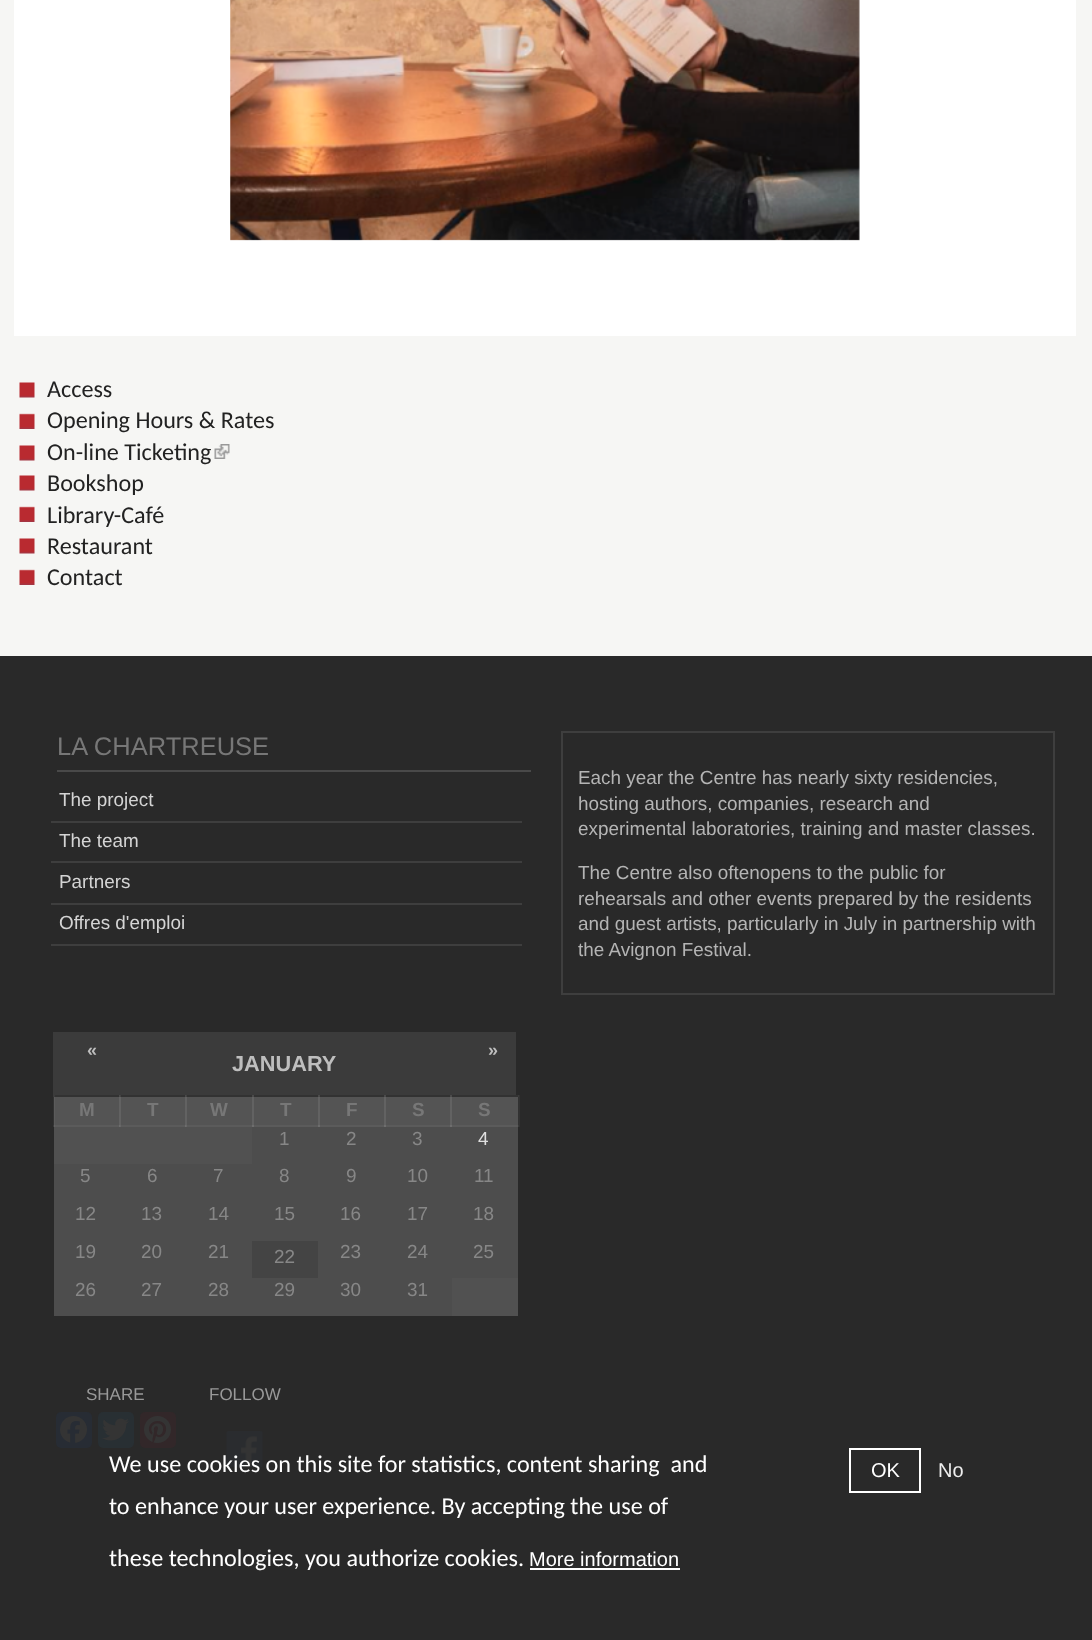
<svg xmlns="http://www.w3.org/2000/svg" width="1092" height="1640">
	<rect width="100%" height="100%" fill="#F6F6F4" />
	<rect x="14" y="0" width="1062" height="336" fill="#FFFFFF" />
	<image x="230" y="0" width="630" height="241" href="assets/img1.png" />
	<image x="19" y="382" width="16" height="16" href="assets/img2.png" />
	<text x="47" y="397" font-family="Carlito" font-size="24.15" fill="#222222">Access</text>
	<image x="19" y="413" width="16" height="16" href="assets/img3.png" />
	<text x="47" y="428" font-family="Carlito" font-size="24.15" fill="#222222">Opening Hours &amp; Rates</text>
	<image x="19" y="445" width="16" height="16" href="assets/img2.png" />
	<text x="47" y="460" font-family="Carlito" font-size="24.15" fill="#222222">On-line Ticketing</text>
	<image x="214" y="444" width="16" height="15" href="assets/img4.png" />
	<image x="19" y="475" width="16" height="16" href="assets/img2.png" />
	<text x="47" y="491" font-family="Carlito" font-size="24.15" fill="#222222">Bookshop</text>
	<image x="19" y="506" width="16" height="16" href="assets/img3.png" />
	<text x="47" y="523" font-family="Carlito" font-size="24.15" fill="#222222">Library-Café</text>
	<image x="19" y="538" width="16" height="16" href="assets/img2.png" />
	<text x="47" y="554" font-family="Carlito" font-size="24.15" fill="#222222">Restaurant</text>
	<image x="19" y="569" width="16" height="16" href="assets/img3.png" />
	<text x="47" y="585" font-family="Carlito" font-size="24.15" fill="#222222">Contact</text>
	<rect x="0" y="656" width="1092" height="984" fill="#292929" />
	<rect x="53" y="1095" width="1" height="32" fill="#323232" />
	<rect x="53" y="1125" width="2" height="2" fill="#3B3B3B" />
	<rect x="53" y="1095" width="399" height="2" fill="#323232" />
	<rect x="53" y="1095" width="2" height="2" fill="#3B3B3B" />
	<rect x="119" y="1095" width="2" height="2" fill="#434343" />
	<rect x="119" y="1095" width="1" height="2" fill="#4B4B4B" />
	<rect x="185" y="1095" width="2" height="2" fill="#434343" />
	<rect x="185" y="1095" width="1" height="2" fill="#4B4B4B" />
	<rect x="252" y="1095" width="2" height="2" fill="#4B4B4B" />
	<rect x="318" y="1095" width="2" height="2" fill="#4B4B4B" />
	<rect x="384" y="1095" width="2" height="2" fill="#4B4B4B" />
	<rect x="518" y="1095" width="2" height="32" fill="#323232" />
	<rect x="518" y="1125" width="1" height="2" fill="#3B3B3B" />
	<rect x="57" y="770" width="474" height="2" fill="#494949" />
	<text x="57" y="755" font-family="Liberation Sans" font-size="25.5" fill="#777777">LA CHARTREUSE</text>
	<rect x="51" y="821" width="471" height="2" fill="#3E3E3E" />
	<text x="59" y="806" font-family="Liberation Sans" font-size="18.9" fill="#D4D4D4">The project</text>
	<rect x="51" y="861" width="471" height="2" fill="#3E3E3E" />
	<text x="59" y="847" font-family="Liberation Sans" font-size="18.9" fill="#D4D4D4">The team</text>
	<rect x="51" y="903" width="471" height="2" fill="#3E3E3E" />
	<text x="59" y="888" font-family="Liberation Sans" font-size="18.9" fill="#D4D4D4">Partners</text>
	<rect x="51" y="944" width="471" height="2" fill="#3E3E3E" />
	<text x="59" y="929" font-family="Liberation Sans" font-size="18.9" fill="#D4D4D4">Offres d'emploi</text>
	<rect x="562" y="732" width="492" height="262" fill="none" stroke="#3E3E3E" stroke-width="2" />
	<g font-family="Liberation Sans" font-size="18.9" fill="#B4B4B4">
		<text x="578" y="784">Each year the Centre has nearly sixty residencies,</text>
		<text x="578" y="810">hosting authors, companies, research and</text>
		<text x="578" y="835">experimental laboratories, training and master classes.</text>
		<text x="578" y="879">The Centre also oftenopens to the public for</text>
		<text x="578" y="905">rehearsals and other events prepared by the residents</text>
		<text x="578" y="930">and guest artists, particularly in July in partnership with</text>
		<text x="578" y="956">the Avignon Festival.</text>
	</g>
	<rect x="53" y="1032" width="463" height="63" fill="#3B3B3B" />
	<g font-family="Liberation Sans" font-size="18" font-weight="700" fill="#BEBEBE">
		<text x="87" y="1056">«</text>
		<text x="488" y="1056">»</text>
	</g>
	<text x="232" y="1071" font-family="Liberation Sans" font-size="21.75" font-weight="700" fill="#BEBEBE">JANUARY</text>
	<rect x="55" y="1097" width="64" height="28" fill="#545454" />
	<rect x="54" y="1097" width="1" height="30" fill="#5B5B5B" />
	<rect x="54" y="1125" width="66" height="2" fill="#5B5B5B" />
	<rect x="54" y="1125" width="1" height="2" fill="#626262" />
	<rect x="119" y="1097" width="2" height="30" fill="#626262" />
	<rect x="119" y="1125" width="1" height="2" fill="#6E6E6E" />
	<text x="79" y="1116" font-family="Liberation Sans" font-size="18.9" font-weight="700" fill="#777777">M</text>
	<rect x="121" y="1097" width="64" height="28" fill="#545454" />
	<rect x="120" y="1125" width="66" height="2" fill="#5B5B5B" />
	<rect x="120" y="1125" width="1" height="2" fill="#686868" />
	<rect x="185" y="1097" width="2" height="30" fill="#626262" />
	<rect x="185" y="1125" width="1" height="2" fill="#6E6E6E" />
	<text x="147" y="1116" font-family="Liberation Sans" font-size="18.9" font-weight="700" fill="#777777">T</text>
	<rect x="187" y="1097" width="65" height="28" fill="#545454" />
	<rect x="186" y="1125" width="66" height="2" fill="#5B5B5B" />
	<rect x="186" y="1125" width="1" height="2" fill="#686868" />
	<text x="210" y="1116" font-family="Liberation Sans" font-size="18.9" font-weight="700" fill="#777777">W</text>
	<rect x="254" y="1097" width="64" height="28" fill="#545454" />
	<rect x="252" y="1097" width="2" height="30" fill="#626262" />
	<rect x="252" y="1125" width="66" height="2" fill="#5B5B5B" />
	<rect x="252" y="1125" width="2" height="2" fill="#6E6E6E" />
	<text x="280" y="1116" font-family="Liberation Sans" font-size="18.9" font-weight="700" fill="#777777">T</text>
	<rect x="320" y="1097" width="64" height="28" fill="#545454" />
	<rect x="318" y="1097" width="2" height="30" fill="#626262" />
	<rect x="318" y="1125" width="200" height="2" fill="#5B5B5B" />
	<rect x="318" y="1125" width="2" height="2" fill="#6E6E6E" />
	<rect x="384" y="1097" width="2" height="30" fill="#626262" />
	<rect x="384" y="1125" width="2" height="2" fill="#6E6E6E" />
	<text x="346" y="1116" font-family="Liberation Sans" font-size="18.9" font-weight="700" fill="#777777">F</text>
	<rect x="386" y="1097" width="64" height="28" fill="#545454" />
	<rect x="450" y="1097" width="2" height="30" fill="#626262" />
	<rect x="450" y="1125" width="2" height="2" fill="#6E6E6E" />
	<text x="412" y="1116" font-family="Liberation Sans" font-size="18.9" font-weight="700" fill="#777777">S</text>
	<rect x="452" y="1097" width="66" height="28" fill="#545454" />
	<rect x="450" y="1095" width="69" height="2" fill="#323232" />
	<rect x="450" y="1095" width="2" height="2" fill="#4B4B4B" />
	<rect x="518" y="1095" width="1" height="2" fill="#3B3B3B" />
	<text x="478" y="1116" font-family="Liberation Sans" font-size="18.9" font-weight="700" fill="#777777">S</text>
	<rect x="252" y="1127" width="266" height="37" fill="#4D4D4D" />
	<rect x="54" y="1127" width="198" height="37" fill="#515151" />
	<g font-family="Liberation Sans" font-size="18.9" fill="#878787">
		<text x="279" y="1145">1</text>
		<text x="346" y="1145">2</text>
		<text x="412" y="1145">3</text>
	</g>
	<text x="478" y="1145" font-family="Liberation Sans" font-size="18.9" fill="#DFDFDF">4</text>
	<rect x="54" y="1164" width="464" height="114" fill="#4D4D4D" />
	<g font-family="Liberation Sans" font-size="18.9" fill="#878787">
		<text x="80" y="1182">5</text>
		<text x="147" y="1182">6</text>
		<text x="213" y="1182">7</text>
		<text x="279" y="1182">8</text>
		<text x="346" y="1182">9</text>
		<text x="407" y="1182">10</text>
		<text x="474" y="1182">11</text>
		<text x="75" y="1220">12</text>
		<text x="141" y="1220">13</text>
		<text x="208" y="1220">14</text>
		<text x="274" y="1220">15</text>
		<text x="340" y="1220">16</text>
		<text x="407" y="1220">17</text>
		<text x="473" y="1220">18</text>
		<text x="75" y="1258">19</text>
		<text x="141" y="1258">20</text>
		<text x="208" y="1258">21</text>
	</g>
	<rect x="252" y="1241" width="66" height="37" fill="#444444" />
	<g font-family="Liberation Sans" font-size="18.9" fill="#878787">
		<text x="274" y="1263">22</text>
		<text x="340" y="1258">23</text>
		<text x="407" y="1258">24</text>
		<text x="473" y="1258">25</text>
	</g>
	<rect x="54" y="1278" width="398" height="38" fill="#4D4D4D" />
	<g font-family="Liberation Sans" font-size="18.9" fill="#878787">
		<text x="75" y="1296">26</text>
		<text x="141" y="1296">27</text>
		<text x="208" y="1296">28</text>
		<text x="274" y="1296">29</text>
		<text x="340" y="1296">30</text>
		<text x="407" y="1296">31</text>
	</g>
	<rect x="452" y="1278" width="66" height="38" fill="#515151" />
	<text x="86" y="1400" font-family="Liberation Sans" font-size="17" fill="#999999">SHARE</text>
	<rect x="56" y="1412" width="36" height="36" rx="5" fill="#272C34" />
	<image x="60" y="1416" width="27" height="27" href="assets/img5.png" />
	<rect x="98" y="1412" width="36" height="36" rx="5" fill="#282F33" />
	<image x="102" y="1418" width="27" height="23" href="assets/img6.png" />
	<rect x="140" y="1412" width="36" height="36" rx="5" fill="#322729" />
	<image x="144" y="1416" width="27" height="27" href="assets/img7.png" />
	<text x="209" y="1400" font-family="Liberation Sans" font-size="17" fill="#999999">FOLLOW</text>
	<image x="226" y="1431" width="37" height="36" href="assets/img8.png" />
	<g font-family="Carlito" font-size="24.15" fill="#FFFFFF">
		<text x="109" y="1472" xml:space="preserve">We use cookies on this site for statistics, content sharing  and</text>
		<text x="109" y="1514">to enhance your user experience. By accepting the use of</text>
		<text x="109" y="1566">these technologies, you authorize cookies.</text>
	</g>
	<text x="529" y="1566" font-family="Liberation Sans" font-size="20" fill="#FFFFFF">More information</text>
	<rect x="530" y="1568" width="150" height="2" fill="#FFFFFF" />
	<rect x="850" y="1449" width="70" height="43" fill="none" stroke="#FFFFFF" stroke-width="2" />
	<text x="871" y="1477" font-family="Liberation Sans" font-size="20" fill="#FFFFFF">OK</text>
	<text x="938" y="1477" font-family="Liberation Sans" font-size="20" fill="#EEEEEE">No</text>
</svg>
